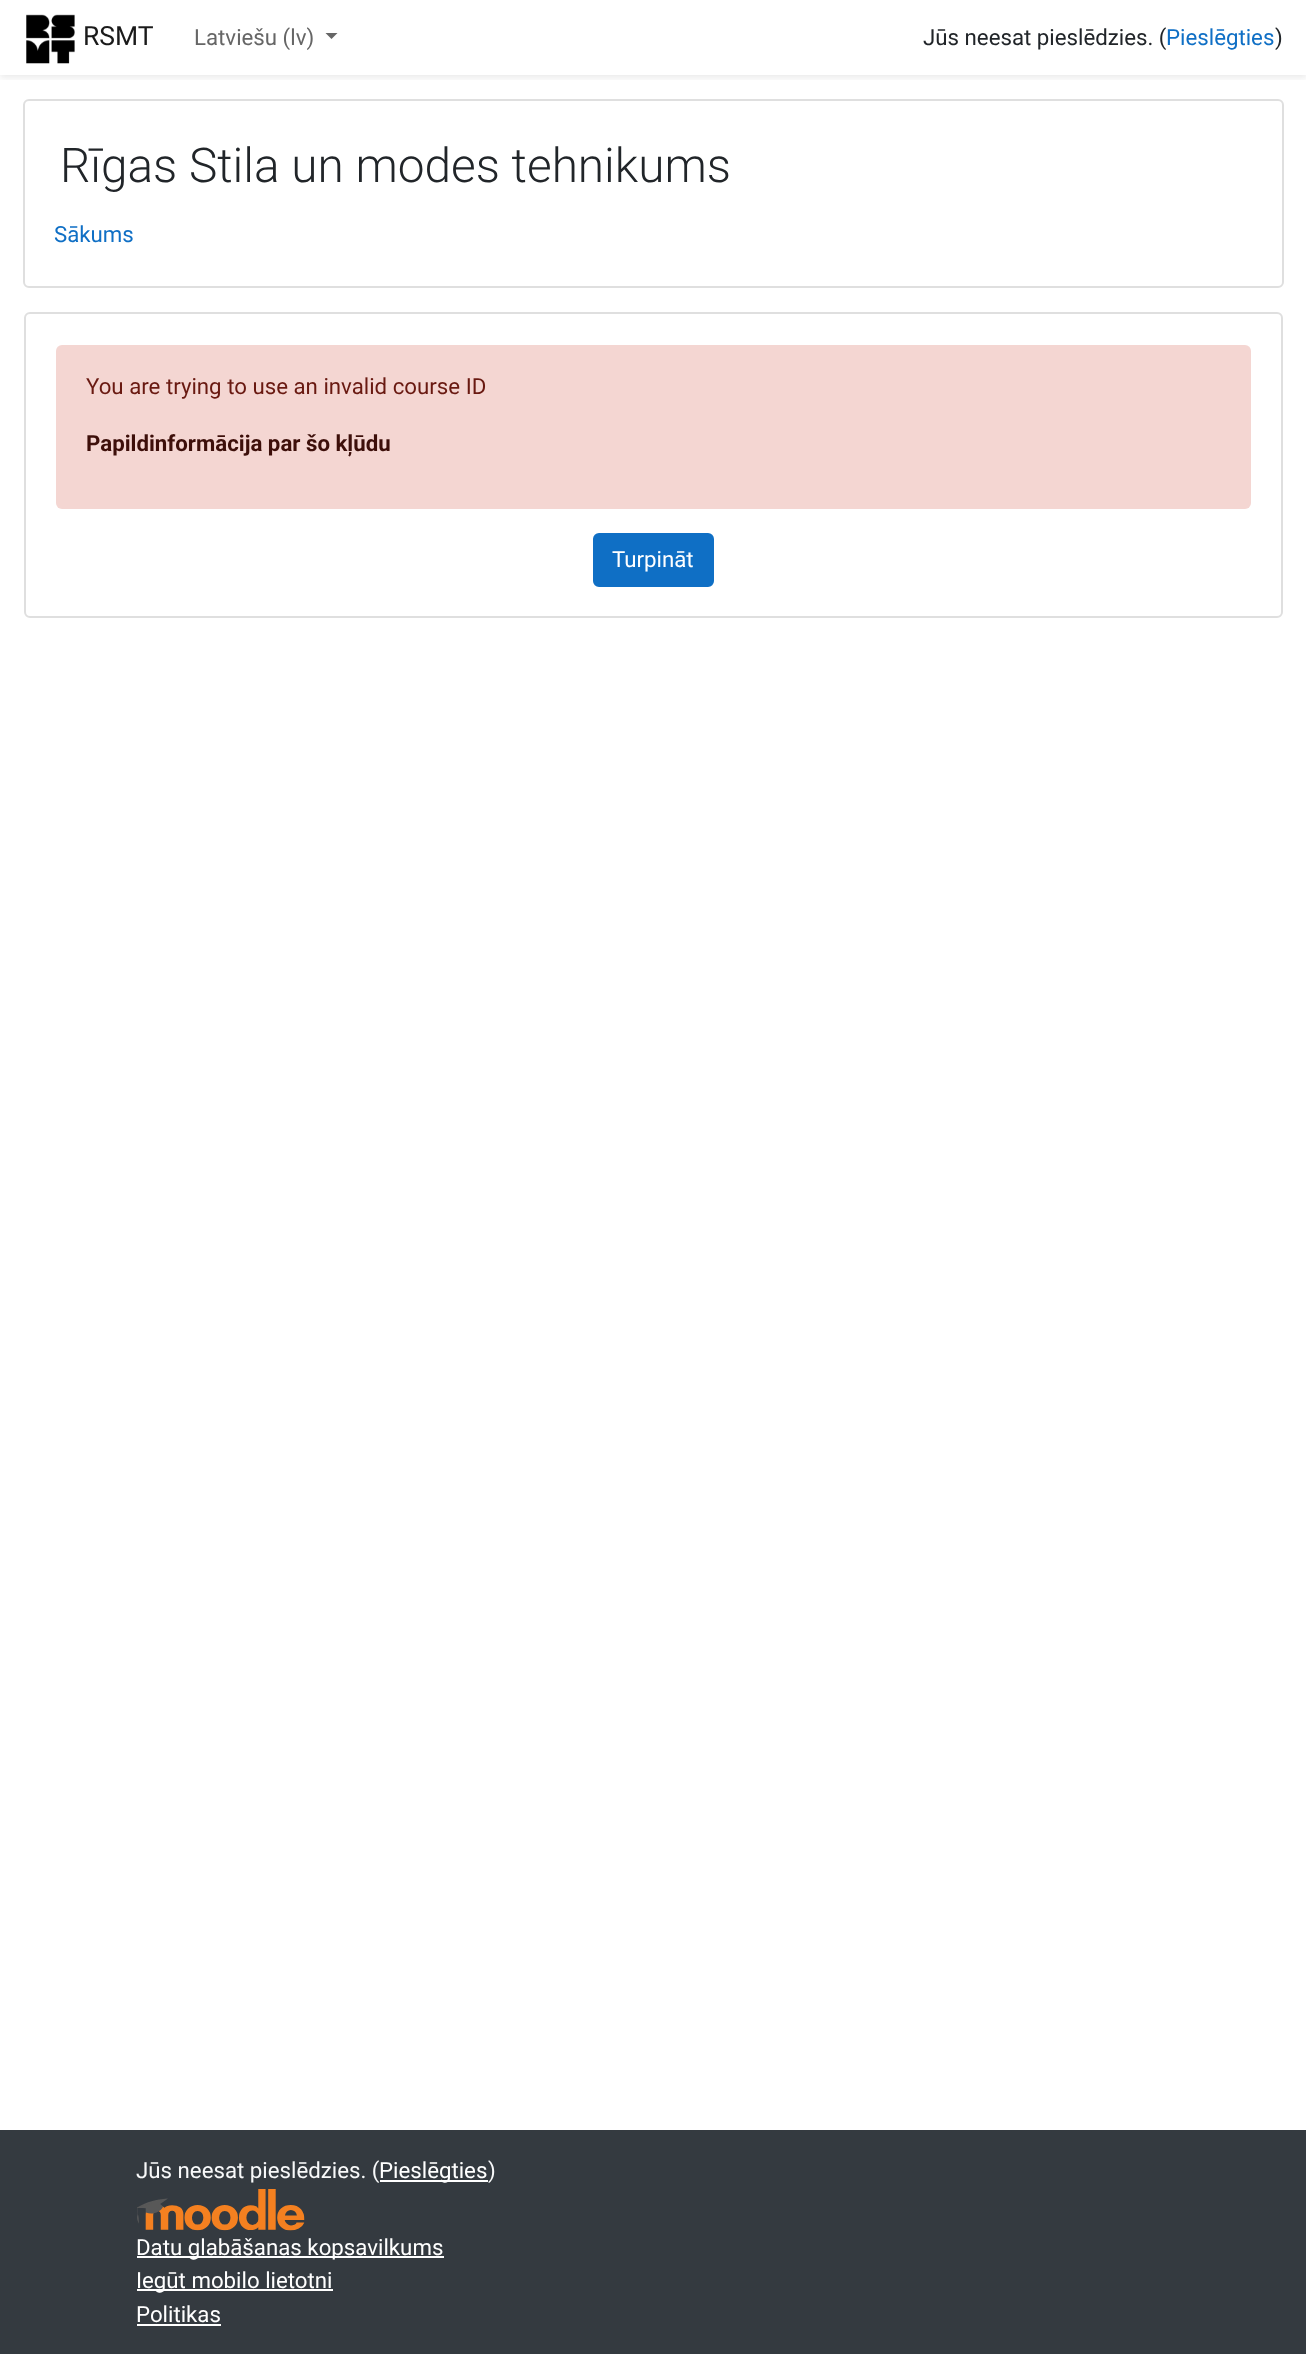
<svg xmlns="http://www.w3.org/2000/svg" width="1306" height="2354">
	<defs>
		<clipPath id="clip1"><rect x="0" y="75" width="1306" height="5" /></clipPath>
	</defs>
	<rect width="100%" height="100%" fill="#FFFFFF" />
	<g clip-path="url(#clip1)">
		<rect x="0" y="3" width="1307" height="75" fill="#000000" fill-opacity="0.08" filter="blur(3px)" />
	</g>
	<image x="26" y="14" width="49" height="50" href="assets/img1.png" />
	<text x="83" y="45" font-family="Roboto" font-size="26.5" fill="#1A1A1A">RSMT</text>
	<text x="194" y="45" font-family="Roboto" font-size="22.25" fill="#666666">Latviešu (lv)</text>
	<path d="M325.5 33H337.5L331.5 39Z" fill="#666666" />
	<text x="923" y="45" font-family="Roboto" font-size="22.25" fill="#212529">Jūs neesat pieslēdzies. (</text>
	<text x="1166" y="45" font-family="Roboto" font-size="22.25" fill="#0F6FC5">Pieslēgties</text>
	<text x="1275" y="45" font-family="Roboto" font-size="22.25" fill="#212529">)</text>
	<rect x="24" y="100" width="1259" height="187" rx="5" fill="none" stroke="#DFDFDF" stroke-width="2" />
	<text x="60" y="182" font-family="Roboto" font-size="47.75" font-weight="300" fill="#212529">Rīgas Stila un modes tehnikums</text>
	<text x="54" y="242" font-family="Roboto" font-size="22.25" fill="#0F6FC5">Sākums</text>
	<rect x="25" y="313" width="1257" height="304" rx="5" fill="none" stroke="#DFDFDF" stroke-width="2" />
	<rect x="56" y="345" width="1195" height="164" rx="6" fill="#F4D6D2" />
	<text x="86" y="394" font-family="Roboto" font-size="22.25" fill="#691911">You are trying to use an invalid course ID</text>
	<text x="86" y="451" font-family="Roboto" font-size="22.25" font-weight="700" fill="#3D0F0A">Papildinformācija par šo kļūdu</text>
	<rect x="594" y="534" width="119" height="52" rx="5" fill="#0F6FC5" stroke="#0F6FC5" stroke-width="2" />
	<text x="612" y="567" font-family="Roboto" font-size="22.25" fill="#FFFFFF">Turpināt</text>
	<rect x="0" y="2130" width="1306" height="224" fill="#343A40" />
	<text x="136" y="2178" font-family="Roboto" font-size="22.25" fill="#F8F9FA">Jūs neesat pieslēdzies. (</text>
	<rect x="380" y="2180" width="108" height="2" fill="#FFFFFF" />
	<text x="379" y="2178" font-family="Roboto" font-size="22.25" fill="#FFFFFF">Pieslēgties</text>
	<text x="488" y="2178" font-family="Roboto" font-size="22.25" fill="#F8F9FA">)</text>
	<image x="137" y="2189" width="168" height="42" href="assets/img2.png" />
	<rect x="137" y="2256" width="307" height="2" fill="#FFFFFF" />
	<text x="136" y="2255" font-family="Roboto" font-size="22.25" fill="#FFFFFF">Datu glabāšanas kopsavilkums</text>
	<rect x="137" y="2289" width="196" height="2" fill="#FFFFFF" />
	<g font-family="Roboto" font-size="22.25" fill="#FFFFFF">
		<text x="136" y="2288">Iegūt mobilo lietotni</text>
		<text x="136" y="2322">Politikas</text>
	</g>
	<rect x="137" y="2324" width="84" height="2" fill="#FFFFFF" />
</svg>
